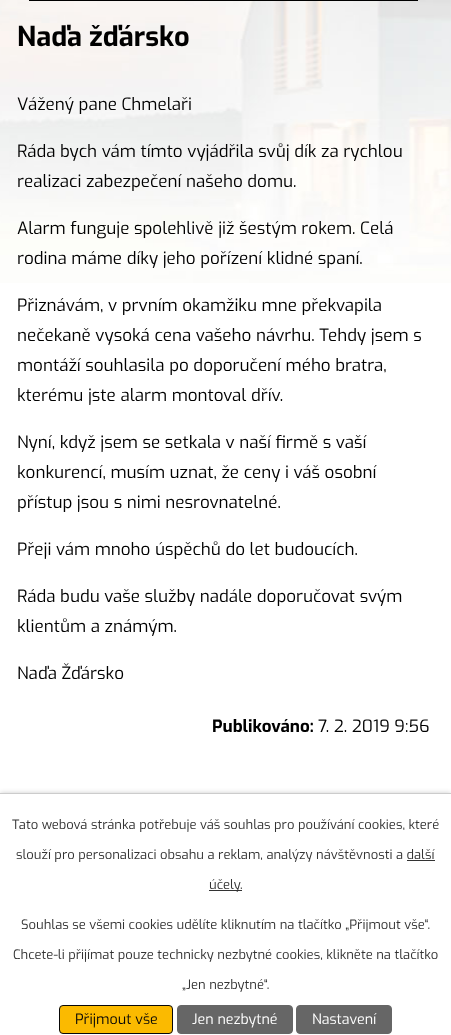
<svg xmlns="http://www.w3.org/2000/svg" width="451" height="1035">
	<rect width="100%" height="100%" fill="#FFFFFF" />
	<image x="0" y="0" width="451" height="283" href="assets/img1.png" />
	<rect x="29" y="0" width="389" height="1" fill="#000000" />
	<text x="17" y="46" font-family="Exo" font-size="27.25" font-weight="700" fill="#000000">Naďa žďársko</text>
	<g font-family="Exo" font-size="17" fill="#000000">
		<text x="17" y="110">Vážený pane Chmelaři</text>
		<text x="17" y="157">Ráda bych vám tímto vyjádřila svůj dík za rychlou</text>
		<text x="17" y="187">realizaci zabezpečení našeho domu.</text>
		<text x="17" y="234">Alarm funguje spolehlivě již šestým rokem. Celá</text>
		<text x="17" y="264">rodina máme díky jeho pořízení klidné spaní.</text>
		<text x="17" y="311">Přiznávám, v prvním okamžiku mne překvapila</text>
		<text x="17" y="341">nečekaně vysoká cena vašeho návrhu. Tehdy jsem s</text>
		<text x="17" y="371">montáží souhlasila po doporučení mého bratra,</text>
		<text x="17" y="401">kterému jste alarm montoval dřív.</text>
		<text x="17" y="448">Nyní, když jsem se setkala v naší firmě s vaší</text>
		<text x="17" y="478">konkurencí, musím uznat, že ceny i váš osobní</text>
		<text x="17" y="508">přístup jsou s nimi nesrovnatelné.</text>
		<text x="17" y="555">Přeji vám mnoho úspěchů do let budoucích.</text>
		<text x="17" y="602">Ráda budu vaše služby nadále doporučovat svým</text>
		<text x="17" y="632">klientům a známým.</text>
		<text x="17" y="679">Naďa Žďársko</text>
	</g>
	<text x="212" y="732" font-family="Exo" font-size="17" font-weight="700" fill="#000000">Publikováno:</text>
	<text x="318" y="732" font-family="Exo" font-size="17" fill="#000000">7. 2. 2019 9:56</text>
	<rect x="0" y="793" width="451" height="242" fill="#000000" fill-opacity="0.2" filter="blur(2.5px)" />
	<rect x="0" y="794" width="451" height="241" fill="#FFFFFF" />
	<rect x="0" y="793" width="451" height="1" fill="#CCCCCC" />
	<g font-family="Exo" font-size="13" fill="#333333">
		<text x="12" y="829">Tato webová stránka potřebuje váš souhlas pro používání cookies, které</text>
		<text x="16" y="859">slouží pro personalizaci obsahu a reklam, analýzy návštěvnosti a další</text>
	</g>
	<rect x="209" y="890" width="33" height="1" fill="#333333" />
	<text x="209" y="889" font-family="Exo" font-size="13" fill="#333333">účely.</text>
	<rect x="407" y="860" width="28" height="1" fill="#333333" />
	<g font-family="Exo" font-size="13" fill="#333333">
		<text x="21" y="929">Souhlas se všemi cookies udělíte kliknutím na tlačítko „Přijmout vše“.</text>
		<text x="13" y="959">Chcete-li přijímat pouze technicky nezbytné cookies, klikněte na tlačítko</text>
		<text x="182" y="989">„Jen nezbytné“.</text>
	</g>
	<rect x="59.5" y="1005.5" width="113" height="28" rx="3.5" fill="#FBBA00" stroke="#080808" />
	<text x="75" y="1024" font-family="Exo" font-size="14.25" fill="#080808">Přijmout vše</text>
	<rect x="177.5" y="1005.5" width="115" height="28" rx="3.5" fill="#666666" stroke="#666666" />
	<text x="192" y="1024" font-family="Exo" font-size="14.25" fill="#FFFFFF">Jen nezbytné</text>
	<rect x="296.5" y="1005.5" width="95" height="28" rx="3.5" fill="#666666" stroke="#666666" />
	<text x="312" y="1024" font-family="Exo" font-size="14.25" fill="#FFFFFF">Nastavení</text>
</svg>
